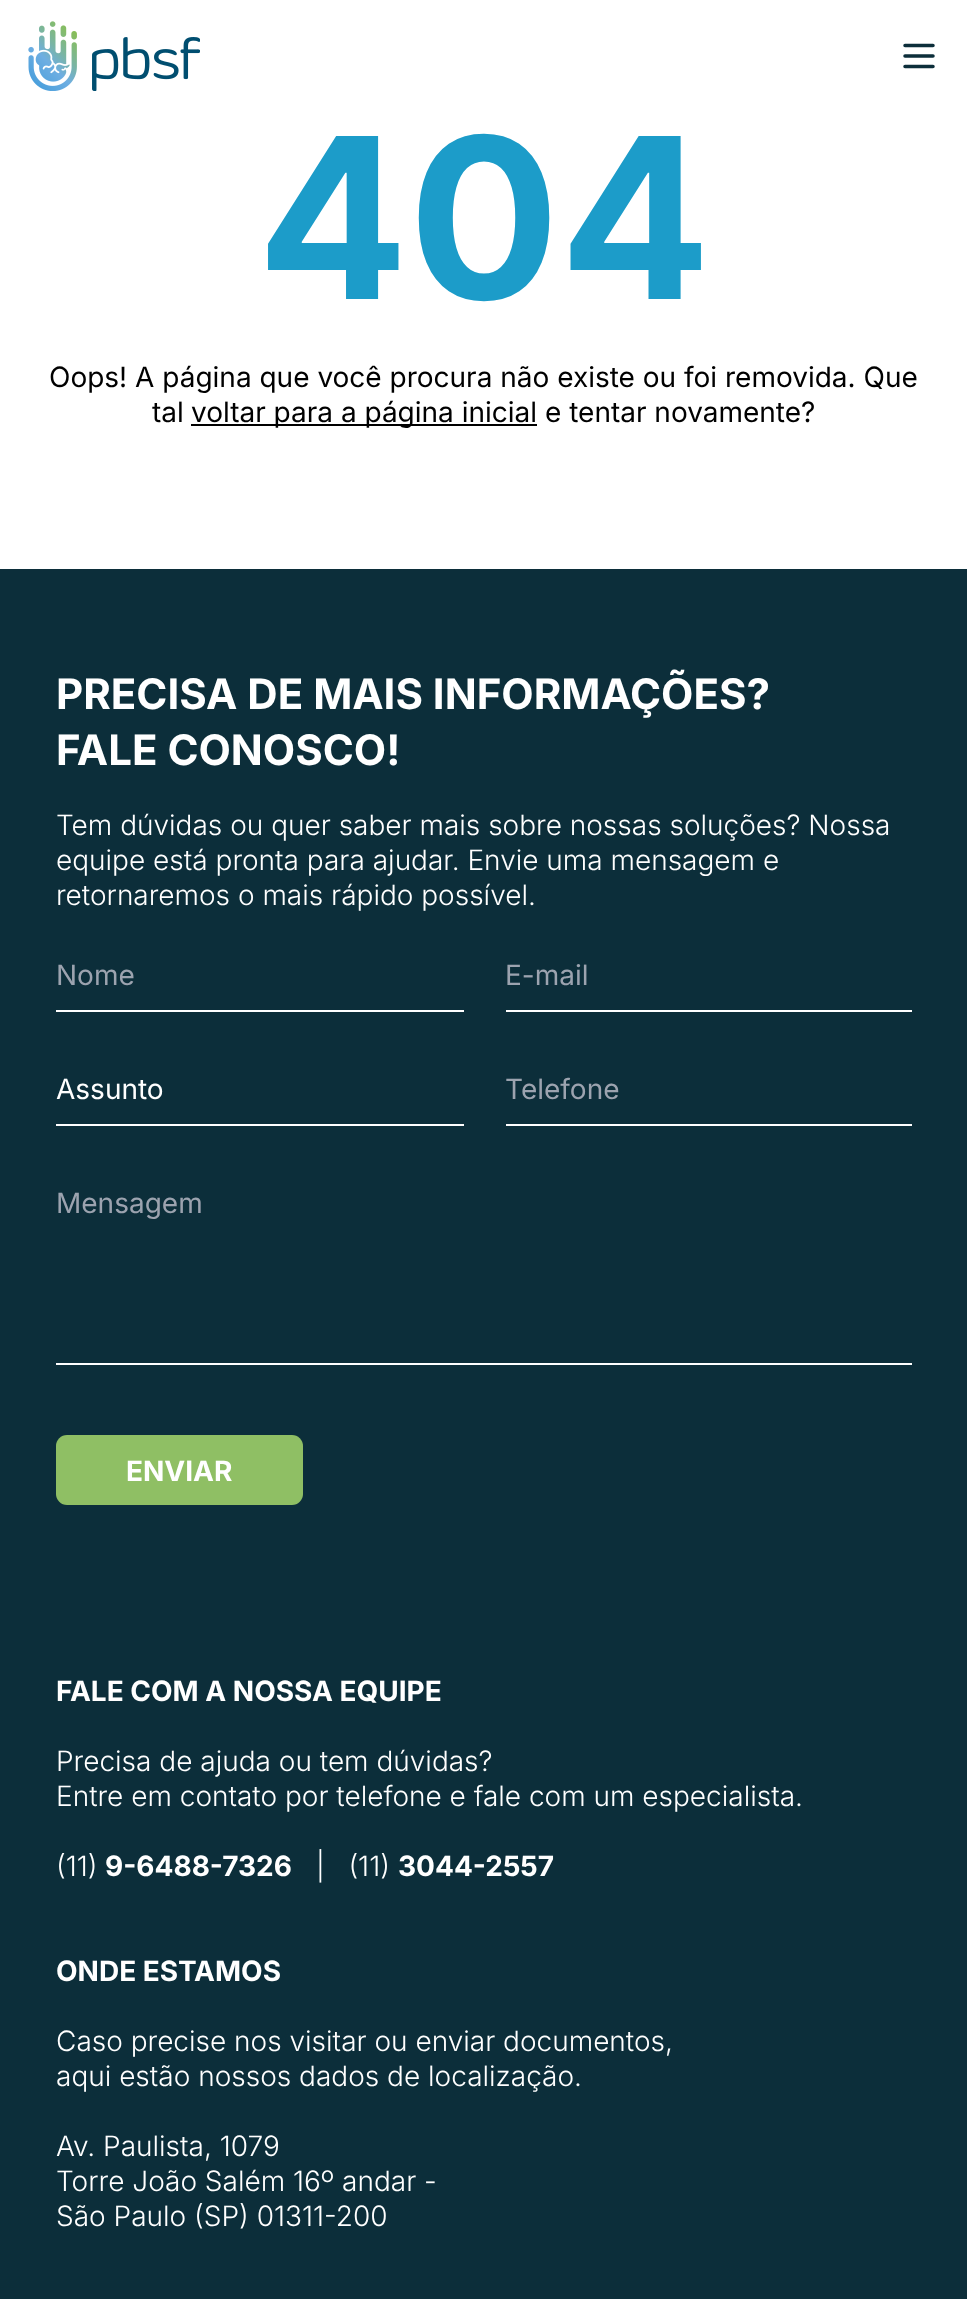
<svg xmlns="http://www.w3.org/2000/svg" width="967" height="2299">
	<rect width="100%" height="100%" fill="#FFFFFF" />
	<image x="28" y="21" width="172" height="70" href="assets/img1.png" />
	<path d="M905 56H933M905 45.5H933M905 66.5H933" fill="none" stroke="#0C2E3A" stroke-width="3.5" stroke-linecap="round" stroke-linejoin="round" />
	<text x="257" y="299" font-family="Inter" font-size="224" font-weight="700" fill="#1C9CC9">404</text>
	<g font-family="Inter" font-size="28" fill="#000000">
		<text x="49" y="387">Oops! A página que você procura não existe ou foi removida. Que</text>
		<text x="152" y="422">tal</text>
	</g>
	<rect x="191" y="424" width="346" height="2" fill="#000000" />
	<text x="191" y="422" font-family="Inter" font-size="28" fill="#000000">voltar para a página inicial e tentar novamente?</text>
	<rect x="0" y="569" width="967" height="1730" fill="#0C2E3A" />
	<g font-family="Inter" font-size="42" font-weight="700" fill="#FFFFFF">
		<text x="56" y="709">PRECISA DE MAIS INFORMAÇÕES?</text>
		<text x="56" y="765">FALE CONOSCO!</text>
	</g>
	<g font-family="Inter" font-size="28" font-weight="300" fill="#FFFFFF">
		<text x="56" y="835">Tem dúvidas ou quer saber mais sobre nossas soluções? Nossa</text>
		<text x="56" y="870">equipe está pronta para ajudar. Envie uma mensagem e</text>
		<text x="56" y="905">retornaremos o mais rápido possível.</text>
	</g>
	<rect x="56" y="1010" width="408" height="2" fill="#FFFFFF" />
	<text x="56" y="985" font-family="Inter" font-size="28" fill="#9CA3AF">Nome</text>
	<rect x="506" y="1010" width="406" height="2" fill="#FFFFFF" />
	<text x="505" y="985" font-family="Inter" font-size="28" fill="#9CA3AF">E-mail</text>
	<rect x="56" y="1124" width="408" height="2" fill="#FFFFFF" />
	<text x="56" y="1099" font-family="Inter" font-size="28" fill="#FFFFFF">Assunto</text>
	<rect x="506" y="1124" width="406" height="2" fill="#FFFFFF" />
	<text x="505" y="1099" font-family="Inter" font-size="28" fill="#9CA3AF">Telefone</text>
	<rect x="56" y="1363" width="856" height="2" fill="#FFFFFF" />
	<text x="56" y="1213" font-family="Inter" font-size="28" fill="#9CA3AF">Mensagem</text>
	<rect x="56" y="1435" width="247" height="70" rx="11" fill="#8FBF64" />
	<g font-family="Inter" font-size="28" font-weight="700" fill="#FFFFFF">
		<text x="126" y="1481">ENVIAR</text>
		<text x="56" y="1701">FALE COM A NOSSA EQUIPE</text>
	</g>
	<g font-family="Inter" font-size="28" font-weight="300" fill="#FFFFFF">
		<text x="56" y="1771">Precisa de ajuda ou tem dúvidas?</text>
		<text x="56" y="1806">Entre em contato por telefone e fale com um especialista.</text>
		<text x="56" y="1876">(11)</text>
	</g>
	<text x="105" y="1876" font-family="Inter" font-size="28" font-weight="700" fill="#FFFFFF">9-6488-7326</text>
	<text x="316" y="1876" font-family="Inter" font-size="28" font-weight="300" fill="#FFFFFF" xml:space="preserve">|   (11)</text>
	<g font-family="Inter" font-size="28" font-weight="700" fill="#FFFFFF">
		<text x="398" y="1876">3044-2557</text>
		<text x="56" y="1981">ONDE ESTAMOS</text>
	</g>
	<g font-family="Inter" font-size="28" font-weight="300" fill="#FFFFFF">
		<text x="56" y="2051">Caso precise nos visitar ou enviar documentos,</text>
		<text x="56" y="2086">aqui estão nossos dados de localização.</text>
		<text x="56" y="2156">Av. Paulista, 1079</text>
		<text x="56" y="2191">Torre João Salém 16º andar -</text>
		<text x="56" y="2226">São Paulo (SP) 01311-200</text>
	</g>
</svg>
